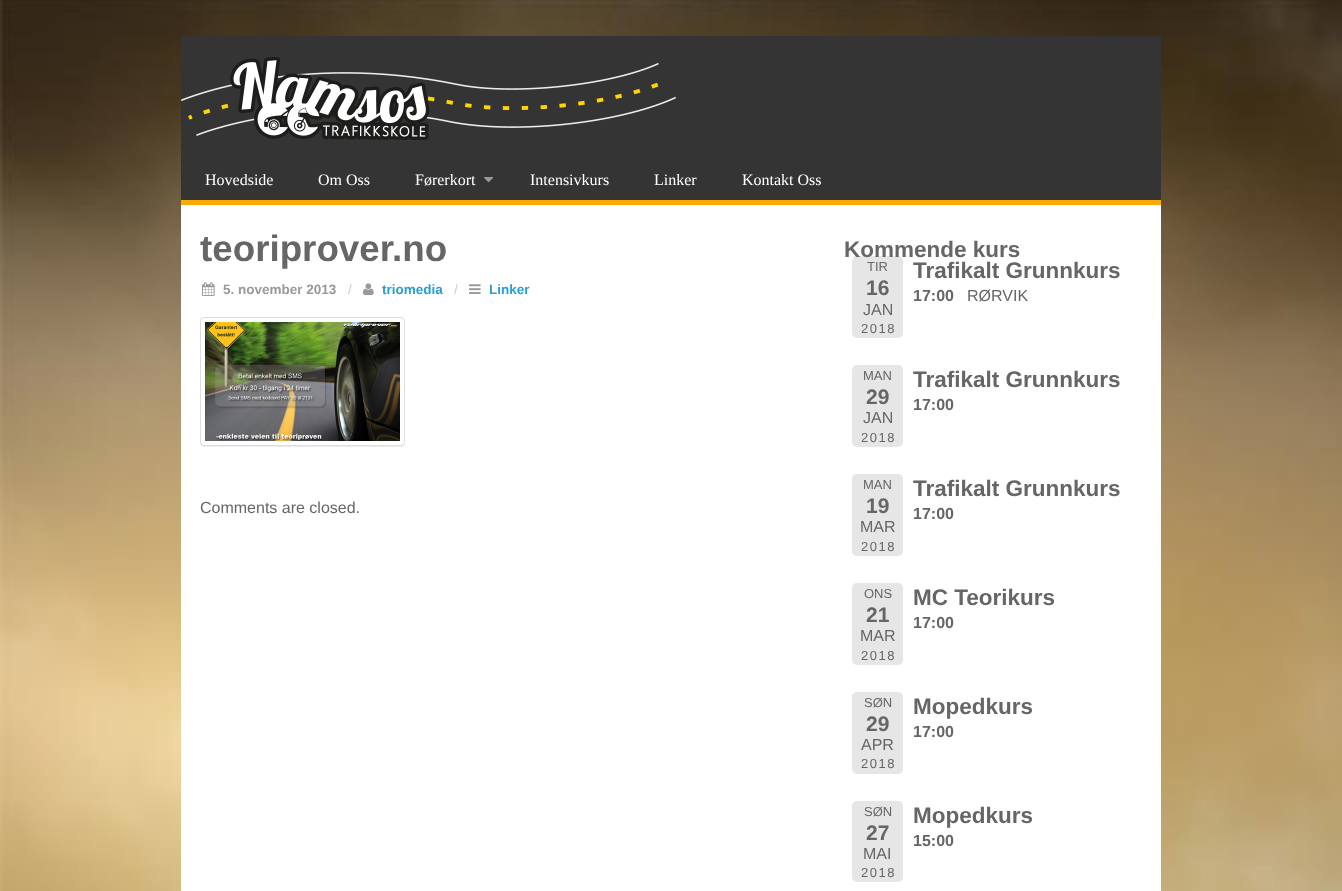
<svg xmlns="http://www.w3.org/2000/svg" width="1342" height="891">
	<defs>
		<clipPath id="clip1"><path d="M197 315H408V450H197ZM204 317H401C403 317 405 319 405 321V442C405 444 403 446 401 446H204C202 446 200 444 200 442V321C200 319 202 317 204 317Z" clip-rule="evenodd" /></clipPath>
	</defs>
	<rect width="100%" height="100%" fill="#FFFFFF" />
	<image x="0" y="0" width="1342" height="891" href="assets/img1.png" />
	<rect x="181" y="36" width="980" height="164" fill="#343434" />
	<image x="181" y="57" width="495" height="83" href="assets/img2.png" />
	<rect x="181" y="200" width="980" height="5" fill="#FDA908" />
	<g font-family="Liberation Serif" font-size="16" fill="#FFFFFF">
		<text x="205" y="185">Hovedside</text>
		<text x="318" y="185">Om Oss</text>
		<text x="415" y="185">Førerkort</text>
	</g>
	<image x="484" y="177" width="10" height="6" href="assets/img3.png" />
	<g font-family="Liberation Serif" font-size="16" fill="#FFFFFF">
		<text x="530" y="185">Intensivkurs</text>
		<text x="654" y="185">Linker</text>
		<text x="742" y="185">Kontakt Oss</text>
	</g>
	<rect x="181" y="205" width="980" height="686" fill="#FFFFFF" />
	<text x="200" y="261" font-family="Liberation Sans" font-size="36.75" font-weight="700" fill="#666666">teoriprover.no</text>
	<image x="202" y="282" width="13" height="14" href="assets/img4.png" />
	<text x="223" y="294" font-family="Liberation Sans" font-size="13.5" font-weight="700" fill="#999999">5. november 2013</text>
	<text x="348" y="294" font-family="Liberation Sans" font-size="13.5" fill="#CCCCCC">/</text>
	<image x="363" y="283" width="11" height="12" href="assets/img5.png" />
	<text x="382" y="294" font-family="Liberation Sans" font-size="13.5" font-weight="700" fill="#2A9ED4">triomedia</text>
	<text x="454" y="294" font-family="Liberation Sans" font-size="13.5" fill="#CCCCCC">/</text>
	<image x="469" y="284" width="12" height="10" href="assets/img6.png" />
	<text x="489" y="294" font-family="Liberation Sans" font-size="13.5" font-weight="700" fill="#2A9ED4">Linker</text>
	<g clip-path="url(#clip1)">
		<rect x="200" y="318" width="205" height="129" rx="4" fill="#000000" fill-opacity="0.07" filter="blur(0.5px)" />
	</g>
	<rect x="200.5" y="317.5" width="204" height="128" rx="3.5" fill="none" stroke="#DDDDDD" />
	<image x="205" y="322" width="195" height="119" href="assets/img7.png" />
	<text x="200" y="513" font-family="Liberation Sans" font-size="16" fill="#666666">Comments are closed.</text>
	<rect x="852" y="256" width="51" height="82" rx="5" fill="#E6E6E6" />
	<text x="844" y="257" font-family="Liberation Sans" font-size="22.5" font-weight="700" fill="#666666">Kommende kurs</text>
	<text x="867" y="271" font-family="Liberation Sans" font-size="13" fill="#666666">TIR</text>
	<text x="866" y="295" font-family="Liberation Sans" font-size="21" font-weight="700" fill="#666666">16</text>
	<text x="863" y="315" font-family="Liberation Sans" font-size="16" fill="#666666">JAN</text>
	<text x="861" y="333" font-family="Liberation Sans" font-size="13" letter-spacing="1.5" fill="#666666">2018</text>
	<text x="913" y="278" font-family="Liberation Sans" font-size="22.5" font-weight="700" fill="#666666">Trafikalt Grunnkurs</text>
	<text x="913" y="301" font-family="Liberation Sans" font-size="16" font-weight="700" fill="#666666">17:00</text>
	<text x="967" y="301" font-family="Liberation Sans" font-size="16" fill="#666666">RØRVIK</text>
	<rect x="852" y="365" width="51" height="82" rx="5" fill="#E6E6E6" />
	<text x="863" y="380" font-family="Liberation Sans" font-size="13" fill="#666666">MAN</text>
	<text x="866" y="404" font-family="Liberation Sans" font-size="21" font-weight="700" fill="#666666">29</text>
	<text x="863" y="423" font-family="Liberation Sans" font-size="16" fill="#666666">JAN</text>
	<text x="861" y="442" font-family="Liberation Sans" font-size="13" letter-spacing="1.5" fill="#666666">2018</text>
	<text x="913" y="387" font-family="Liberation Sans" font-size="22.5" font-weight="700" fill="#666666">Trafikalt Grunnkurs</text>
	<text x="913" y="410" font-family="Liberation Sans" font-size="16" font-weight="700" fill="#666666">17:00</text>
	<rect x="852" y="474" width="51" height="82" rx="5" fill="#E6E6E6" />
	<text x="863" y="489" font-family="Liberation Sans" font-size="13" fill="#666666">MAN</text>
	<text x="866" y="513" font-family="Liberation Sans" font-size="21" font-weight="700" fill="#666666">19</text>
	<text x="860" y="532" font-family="Liberation Sans" font-size="16" fill="#666666">MAR</text>
	<text x="861" y="551" font-family="Liberation Sans" font-size="13" letter-spacing="1.5" fill="#666666">2018</text>
	<text x="913" y="496" font-family="Liberation Sans" font-size="22.5" font-weight="700" fill="#666666">Trafikalt Grunnkurs</text>
	<text x="913" y="519" font-family="Liberation Sans" font-size="16" font-weight="700" fill="#666666">17:00</text>
	<rect x="852" y="583" width="51" height="82" rx="5" fill="#E6E6E6" />
	<text x="864" y="598" font-family="Liberation Sans" font-size="13" fill="#666666">ONS</text>
	<text x="866" y="622" font-family="Liberation Sans" font-size="21" font-weight="700" fill="#666666">21</text>
	<text x="860" y="641" font-family="Liberation Sans" font-size="16" fill="#666666">MAR</text>
	<text x="861" y="660" font-family="Liberation Sans" font-size="13" letter-spacing="1.5" fill="#666666">2018</text>
	<text x="913" y="605" font-family="Liberation Sans" font-size="22.5" font-weight="700" fill="#666666">MC Teorikurs</text>
	<text x="913" y="628" font-family="Liberation Sans" font-size="16" font-weight="700" fill="#666666">17:00</text>
	<rect x="852" y="692" width="51" height="82" rx="5" fill="#E6E6E6" />
	<text x="864" y="707" font-family="Liberation Sans" font-size="13" fill="#666666">SØN</text>
	<text x="866" y="731" font-family="Liberation Sans" font-size="21" font-weight="700" fill="#666666">29</text>
	<text x="861" y="750" font-family="Liberation Sans" font-size="16" fill="#666666">APR</text>
	<text x="861" y="768" font-family="Liberation Sans" font-size="13" letter-spacing="1.5" fill="#666666">2018</text>
	<text x="913" y="714" font-family="Liberation Sans" font-size="22.5" font-weight="700" fill="#666666">Mopedkurs</text>
	<text x="913" y="737" font-family="Liberation Sans" font-size="16" font-weight="700" fill="#666666">17:00</text>
	<rect x="852" y="801" width="51" height="81" rx="5" fill="#E6E6E6" />
	<text x="864" y="816" font-family="Liberation Sans" font-size="13" fill="#666666">SØN</text>
	<text x="866" y="840" font-family="Liberation Sans" font-size="21" font-weight="700" fill="#666666">27</text>
	<text x="863" y="859" font-family="Liberation Sans" font-size="16" fill="#666666">MAI</text>
	<text x="861" y="877" font-family="Liberation Sans" font-size="13" letter-spacing="1.5" fill="#666666">2018</text>
	<text x="913" y="823" font-family="Liberation Sans" font-size="22.5" font-weight="700" fill="#666666">Mopedkurs</text>
	<text x="913" y="846" font-family="Liberation Sans" font-size="16" font-weight="700" fill="#666666">15:00</text>
</svg>
